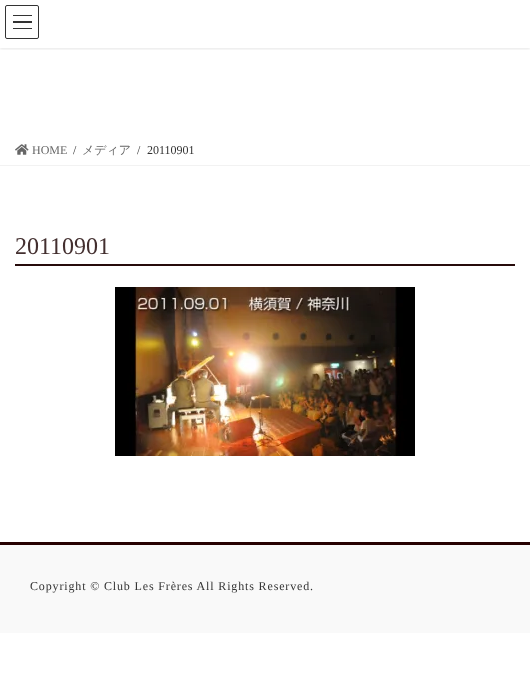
<svg xmlns="http://www.w3.org/2000/svg" width="530" height="686">
	<defs>
		<clipPath id="clip1"><rect x="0" y="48" width="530" height="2" /></clipPath>
	</defs>
	<rect width="100%" height="100%" fill="#FFFFFF" />
	<g clip-path="url(#clip1)">
		<rect x="0" y="1" width="530" height="48" fill="#000000" fill-opacity="0.1" filter="blur(1.5px)" />
	</g>
	<rect x="13" y="15" width="19" height="1" fill="#333333" />
	<rect x="13" y="21" width="19" height="2" fill="#333333" />
	<rect x="13" y="28" width="19" height="1" fill="#333333" />
	<rect x="5.5" y="5.5" width="33" height="33" rx="1.5" fill="none" stroke="#333333" />
	<rect x="0" y="165" width="530" height="1" fill="#F2F2F2" />
	<image x="15" y="144" width="14" height="11" href="assets/img1.png" />
	<text x="32" y="154" font-family="Liberation Serif" font-size="12" fill="#666666">HOME</text>
	<text x="73" y="154" font-family="Liberation Serif" font-size="12" fill="#333333">/</text>
	<text x="82" y="154" font-family="WenQuanYi Zen Hei" font-size="12" font-weight="500" fill="#666666">メディア</text>
	<g font-family="Liberation Serif" font-size="12" fill="#333333">
		<text x="137" y="154">/</text>
		<text x="147" y="154">20110901</text>
	</g>
	<rect x="15" y="264" width="500" height="2" fill="#260B0B" />
	<text x="15" y="254" font-family="Liberation Serif" font-size="24" fill="#432F2F">20110901</text>
	<image x="115" y="287" width="300" height="169" href="assets/img2.png" />
	<rect x="0" y="545" width="530" height="88" fill="#F9F9F9" />
	<rect x="0" y="542" width="530" height="3" fill="#260101" />
	<text x="30" y="590" font-family="Liberation Serif" font-size="12" letter-spacing="0.85" fill="#333333">Copyright © Club Les Frères All Rights Reserved.</text>
</svg>
